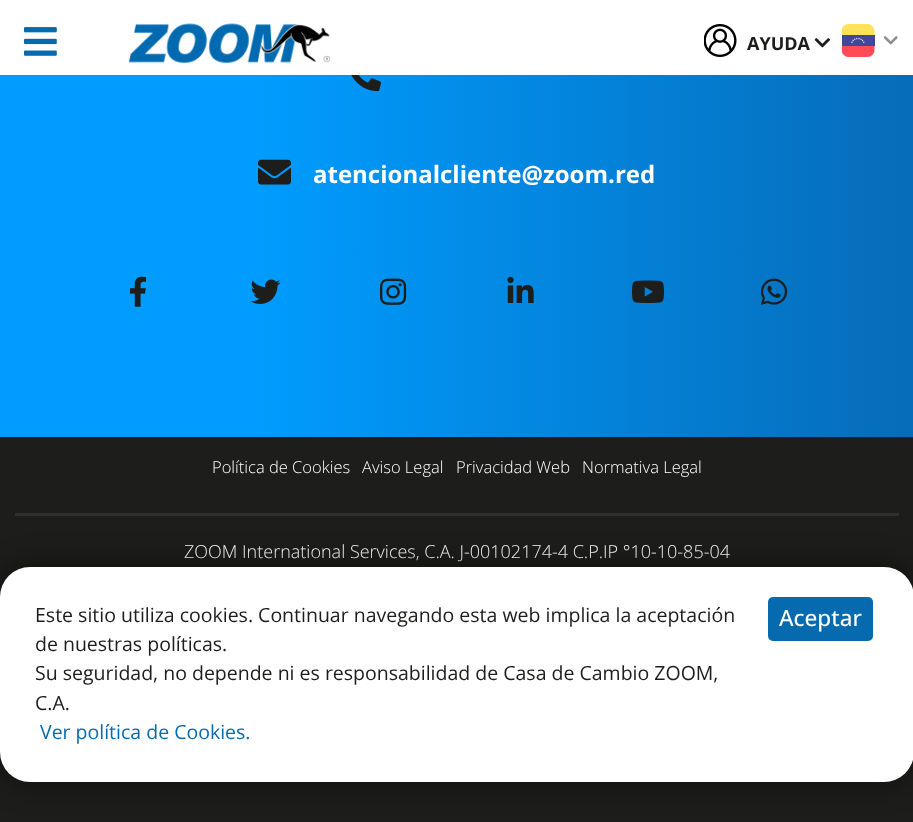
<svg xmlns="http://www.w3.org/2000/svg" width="913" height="822">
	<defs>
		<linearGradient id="g1" gradientUnits="userSpaceOnUse" x1="0" y1="-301" x2="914" y2="-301"><stop offset="0.28" stop-color="#009CFF" /><stop offset="0.98" stop-color="#066DBA" /></linearGradient>
	</defs>
	<rect width="100%" height="100%" fill="#FFFFFF" />
	<image x="24" y="27" width="33" height="29" href="assets/img1.png" />
	<image x="128" y="23" width="203" height="41" href="assets/img2.png" />
	<image x="704" y="24" width="33" height="33" href="assets/img3.png" />
	<text x="747" y="50" font-family="Open Sans" font-size="18" font-weight="700" fill="#1D1D1B">AYUDA</text>
	<image x="814" y="38" width="16" height="10" href="assets/img4.png" />
	<image x="842" y="24" width="33" height="33" href="assets/img5.png" />
	<image x="883" y="36" width="15" height="9" href="assets/img6.png" />
	<rect x="0" y="75" width="913" height="362" fill="url(#g1)" />
	<image x="351" y="75" width="30" height="17" href="assets/img7.png" />
	<image x="258" y="159" width="33" height="26" href="assets/img8.png" />
	<text x="313" y="183" font-family="Open Sans" font-size="24" font-weight="700" fill="#FFFFFF">atencionalcliente@zoom.red</text>
	<image x="129" y="276" width="18" height="31" href="assets/img9.png" />
	<image x="250" y="279" width="31" height="25" href="assets/img10.png" />
	<image x="379" y="278" width="28" height="27" href="assets/img11.png" />
	<image x="507" y="276" width="27" height="27" href="assets/img12.png" />
	<image x="632" y="280" width="32" height="23" href="assets/img13.png" />
	<image x="760" y="278" width="28" height="27" href="assets/img14.png" />
	<rect x="0" y="437" width="913" height="385" fill="#1D1D1B" />
	<rect x="15" y="513" width="884" height="3" fill="#2F2F2F" />
	<g font-family="Open Sans" font-size="16.5" font-weight="300" fill="#FFFFFF">
		<text x="212" y="473">Política de Cookies</text>
		<text x="362" y="473">Aviso Legal</text>
		<text x="456" y="473">Privacidad Web</text>
		<text x="582" y="473">Normativa Legal</text>
	</g>
	<text x="184" y="558" font-family="Open Sans" font-size="18" font-weight="300" fill="#FFFFFF">ZOOM International Services, C.A. J-00102174-4 C.P.IP °10-10-85-04</text>
	<rect x="0" y="567" width="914" height="215" rx="30" fill="#000000" fill-opacity="0.5" filter="blur(15px)" />
	<rect x="0" y="567" width="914" height="215" rx="30" fill="#FFFFFF" />
	<g font-family="Open Sans" font-size="19.5" fill="#1D1D1B">
		<text x="35" y="622">Este sitio utiliza cookies. Continuar navegando esta web implica la aceptación</text>
		<text x="35" y="651">de nuestras políticas.</text>
		<text x="35" y="680">Su seguridad, no depende ni es responsabilidad de Casa de Cambio ZOOM,</text>
		<text x="35" y="710">C.A.</text>
	</g>
	<rect x="768" y="597" width="105" height="44" rx="5" fill="#066BAE" />
	<text x="779" y="626" font-family="Open Sans" font-size="22.5" font-weight="500" fill="#FFFFFF">Aceptar</text>
	<text x="40" y="739" font-family="Open Sans" font-size="19.5" fill="#066BAE">Ver política de Cookies.</text>
</svg>
